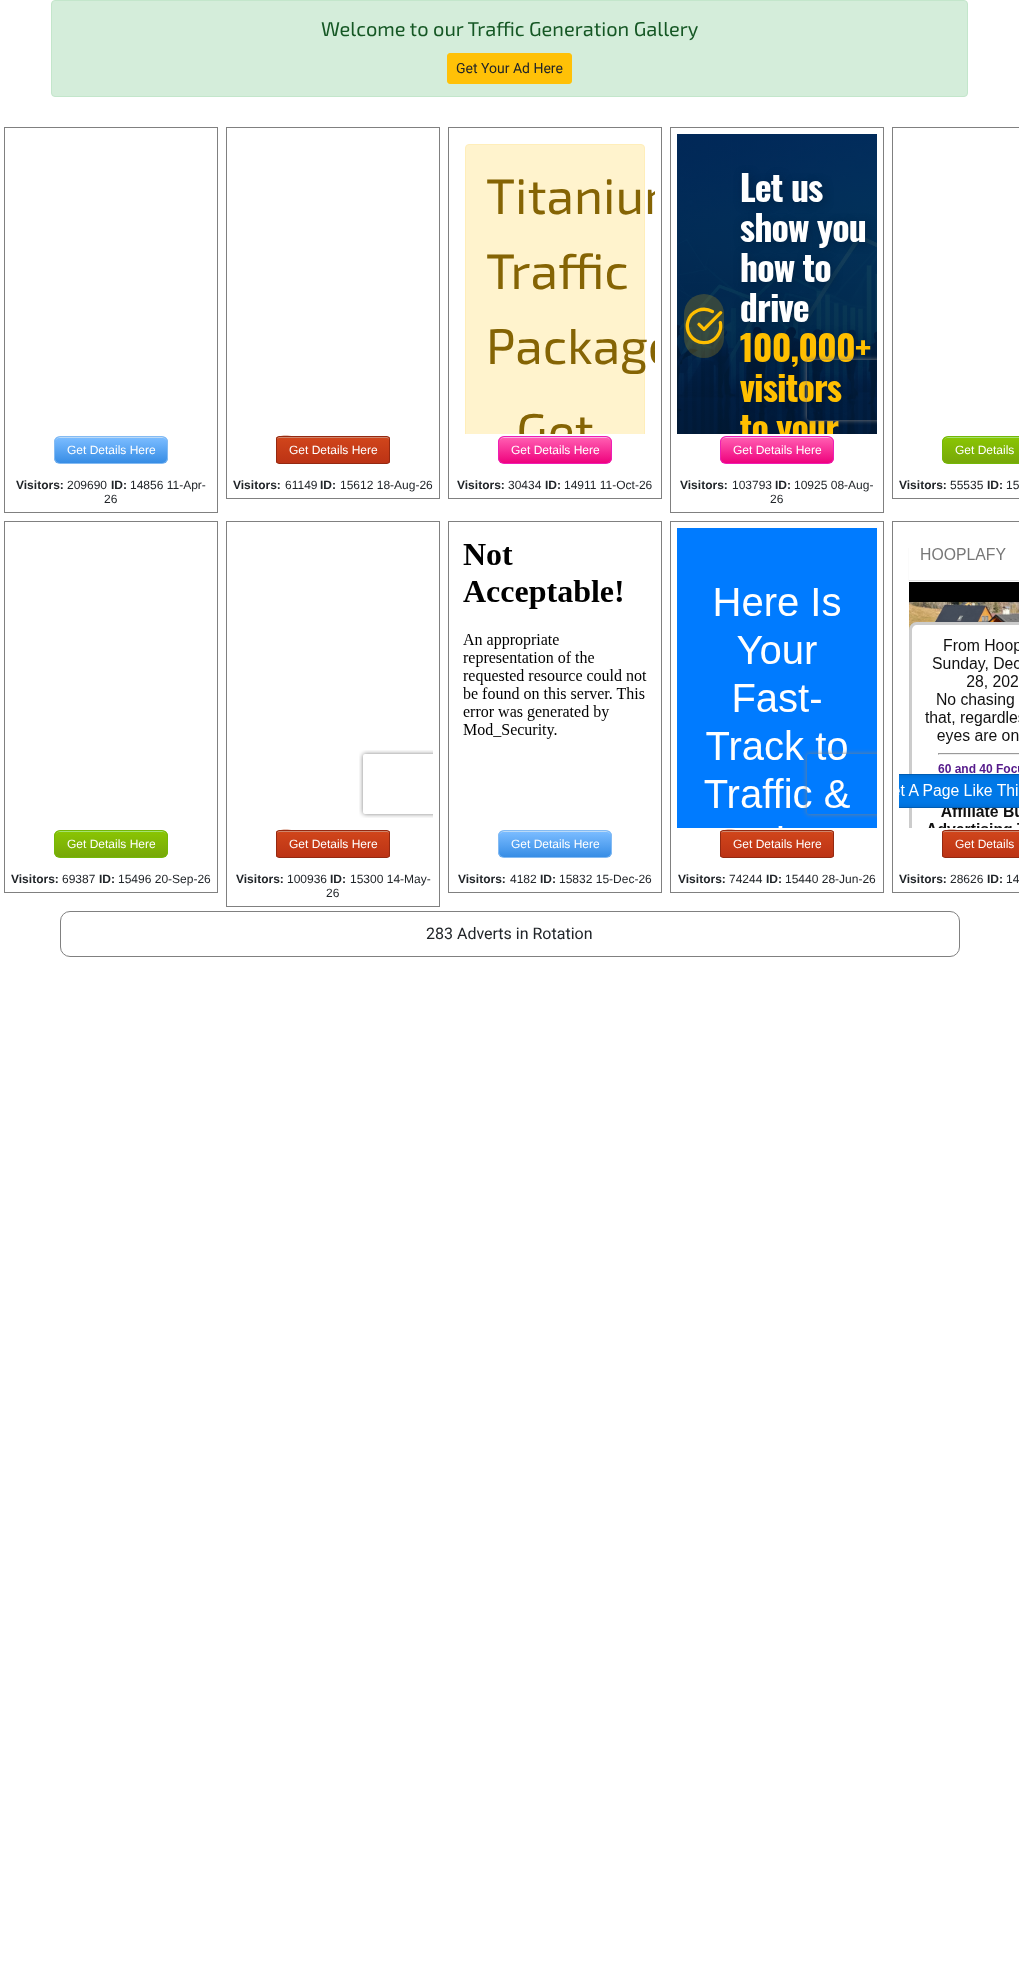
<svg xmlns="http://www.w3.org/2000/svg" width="1019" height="1979">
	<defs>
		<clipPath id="clip1"><rect x="54" y="436" width="114" height="28" rx="6" /></clipPath>
		<linearGradient id="g1" gradientUnits="userSpaceOnUse" x1="111" y1="437" x2="111" y2="463"><stop offset="0.05" stop-color="#79BBFF" /><stop offset="1" stop-color="#378DE5" /></linearGradient>
		<clipPath id="clip2"><rect x="276" y="436" width="114" height="28" rx="3" /></clipPath>
		<linearGradient id="g2" gradientUnits="userSpaceOnUse" x1="333" y1="437" x2="333" y2="463"><stop offset="0.05" stop-color="#D0451B" /><stop offset="1" stop-color="#BC3315" /></linearGradient>
		<clipPath id="clip3"><rect x="498" y="436" width="114" height="28" rx="6" /></clipPath>
		<linearGradient id="g3" gradientUnits="userSpaceOnUse" x1="555" y1="437" x2="555" y2="463"><stop offset="0.05" stop-color="#FF5BB0" /><stop offset="1" stop-color="#EF027D" /></linearGradient>
		<clipPath id="clip4"><rect x="720" y="436" width="114" height="28" rx="6" /></clipPath>
		<linearGradient id="g4" gradientUnits="userSpaceOnUse" x1="777" y1="437" x2="777" y2="463"><stop offset="0.05" stop-color="#FF5BB0" /><stop offset="1" stop-color="#EF027D" /></linearGradient>
		<clipPath id="clip5"><rect x="942" y="436" width="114" height="28" rx="6" /></clipPath>
		<linearGradient id="g5" gradientUnits="userSpaceOnUse" x1="999" y1="437" x2="999" y2="463"><stop offset="0.05" stop-color="#89C403" /><stop offset="1" stop-color="#77A809" /></linearGradient>
		<clipPath id="clip6"><rect x="54" y="830" width="114" height="28" rx="6" /></clipPath>
		<linearGradient id="g6" gradientUnits="userSpaceOnUse" x1="111" y1="831" x2="111" y2="857"><stop offset="0.05" stop-color="#89C403" /><stop offset="1" stop-color="#77A809" /></linearGradient>
		<clipPath id="clip7"><rect x="276" y="830" width="114" height="28" rx="3" /></clipPath>
		<linearGradient id="g7" gradientUnits="userSpaceOnUse" x1="333" y1="831" x2="333" y2="857"><stop offset="0.05" stop-color="#D0451B" /><stop offset="1" stop-color="#BC3315" /></linearGradient>
		<clipPath id="clip8"><rect x="498" y="830" width="114" height="28" rx="6" /></clipPath>
		<linearGradient id="g8" gradientUnits="userSpaceOnUse" x1="555" y1="831" x2="555" y2="857"><stop offset="0.05" stop-color="#79BBFF" /><stop offset="1" stop-color="#378DE5" /></linearGradient>
		<clipPath id="clip9"><rect x="720" y="830" width="114" height="28" rx="3" /></clipPath>
		<linearGradient id="g9" gradientUnits="userSpaceOnUse" x1="777" y1="831" x2="777" y2="857"><stop offset="0.05" stop-color="#D0451B" /><stop offset="1" stop-color="#BC3315" /></linearGradient>
		<clipPath id="clip10"><rect x="942" y="830" width="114" height="28" rx="3" /></clipPath>
		<linearGradient id="g10" gradientUnits="userSpaceOnUse" x1="999" y1="831" x2="999" y2="857"><stop offset="0.05" stop-color="#D0451B" /><stop offset="1" stop-color="#BC3315" /></linearGradient>
	</defs>
	<rect width="100%" height="100%" fill="#FFFFFF" />
	<rect x="51.5" y="0.5" width="916" height="96" rx="3.5" fill="#D4EDDA" stroke="#C3E6CB" />
	<text x="321" y="36" font-family="'Exo 2'" font-size="20" fill="#155724">Welcome to our Traffic Generation Gallery</text>
	<rect x="447.5" y="53.5" width="124" height="30" rx="2.5" fill="#FFC107" stroke="#FFC107" />
	<text x="456" y="73" font-family="Roboto" font-size="14" fill="#212529">Get Your Ad Here</text>
	<rect x="4" y="127" width="214" height="1" fill="#808080" />
	<rect x="217" y="127" width="1" height="386" fill="#808080" />
	<rect x="4" y="512" width="214" height="1" fill="#808080" />
	<rect x="4" y="127" width="1" height="386" fill="#808080" />
	<g clip-path="url(#clip1)">
		<rect x="54" y="437" width="114" height="26" fill="url(#g1)" />
	</g>
	<path d="M60 438H162C165 438 167 440 167 443C167 433 150 437 145 437H77C72 437 55 433 55 443C55 440 57 438 60 438Z" fill="#BBDAF7" />
	<rect x="54.5" y="436.5" width="113" height="27" rx="5.5" fill="none" stroke="#84BBF3" />
	<text x="67" y="454" font-family="Liberation Sans" font-size="12" fill="#FFFFFF">Get Details Here</text>
	<text x="16" y="489" font-family="Liberation Sans" font-size="12" font-weight="700" fill="#212529">Visitors:</text>
	<text x="67" y="489" font-family="Liberation Sans" font-size="12" fill="#212529">209690</text>
	<text x="111" y="489" font-family="Liberation Sans" font-size="12" font-weight="700" fill="#212529">ID:</text>
	<g font-family="Liberation Sans" font-size="12" fill="#212529">
		<text x="130" y="489">14856 11-Apr-</text>
		<text x="104" y="503">26</text>
	</g>
	<rect x="226" y="127" width="214" height="1" fill="#808080" />
	<rect x="439" y="127" width="1" height="372" fill="#808080" />
	<rect x="226" y="498" width="214" height="1" fill="#808080" />
	<rect x="226" y="127" width="1" height="372" fill="#808080" />
	<g clip-path="url(#clip2)">
		<rect x="276" y="437" width="114" height="26" fill="url(#g2)" />
	</g>
	<path d="M279 438H387C388 438 389 439 389 440C389 439 389 437 387 437H297C297 437 277 432 277 440C277 439 278 438 279 438Z" fill="#CF866C" />
	<rect x="276.5" y="436.5" width="113" height="27" rx="2.5" fill="none" stroke="#942911" />
	<text x="289" y="454" font-family="Liberation Sans" font-size="12" fill="#FFFFFF">Get Details Here</text>
	<text x="233" y="489" font-family="Liberation Sans" font-size="12" font-weight="700" fill="#212529">Visitors:</text>
	<text x="285" y="489" font-family="Liberation Sans" font-size="12" fill="#212529">61149</text>
	<text x="320" y="489" font-family="Liberation Sans" font-size="12" font-weight="700" fill="#212529">ID:</text>
	<text x="340" y="489" font-family="Liberation Sans" font-size="12" fill="#212529">15612 18-Aug-26</text>
	<rect x="448" y="127" width="214" height="1" fill="#808080" />
	<rect x="661" y="127" width="1" height="372" fill="#808080" />
	<rect x="448" y="498" width="214" height="1" fill="#808080" />
	<rect x="448" y="127" width="1" height="372" fill="#808080" />
	<image x="465" y="144" width="190" height="290" href="assets/img1.png" />
	<g clip-path="url(#clip3)">
		<rect x="498" y="437" width="114" height="26" fill="url(#g3)" />
	</g>
	<path d="M504 438H606C609 438 611 440 611 443C611 433 594 437 589 437H521C516 437 499 433 499 443C499 440 501 438 504 438Z" fill="#FBAFE3" />
	<rect x="498.5" y="436.5" width="113" height="27" rx="5.5" fill="none" stroke="#EE1EB5" />
	<text x="511" y="454" font-family="Liberation Sans" font-size="12" fill="#FFFFFF">Get Details Here</text>
	<text x="457" y="489" font-family="Liberation Sans" font-size="12" font-weight="700" fill="#212529">Visitors:</text>
	<text x="508" y="489" font-family="Liberation Sans" font-size="12" fill="#212529">30434</text>
	<text x="545" y="489" font-family="Liberation Sans" font-size="12" font-weight="700" fill="#212529">ID:</text>
	<text x="564" y="489" font-family="Liberation Sans" font-size="12" fill="#212529">14911 11-Oct-26</text>
	<rect x="670" y="127" width="214" height="1" fill="#808080" />
	<rect x="883" y="127" width="1" height="386" fill="#808080" />
	<rect x="670" y="512" width="214" height="1" fill="#808080" />
	<rect x="670" y="127" width="1" height="386" fill="#808080" />
	<image x="677" y="134" width="200" height="300" href="assets/img2.png" />
	<g clip-path="url(#clip4)">
		<rect x="720" y="437" width="114" height="26" fill="url(#g4)" />
	</g>
	<path d="M726 438H828C831 438 833 440 833 443C833 433 816 437 811 437H743C738 437 721 433 721 443C721 440 723 438 726 438Z" fill="#FBAFE3" />
	<rect x="720.5" y="436.5" width="113" height="27" rx="5.5" fill="none" stroke="#EE1EB5" />
	<text x="733" y="454" font-family="Liberation Sans" font-size="12" fill="#FFFFFF">Get Details Here</text>
	<text x="680" y="489" font-family="Liberation Sans" font-size="12" font-weight="700" fill="#212529">Visitors:</text>
	<text x="732" y="489" font-family="Liberation Sans" font-size="12" fill="#212529">103793</text>
	<text x="775" y="489" font-family="Liberation Sans" font-size="12" font-weight="700" fill="#212529">ID:</text>
	<g font-family="Liberation Sans" font-size="12" fill="#212529">
		<text x="794" y="489">10925 08-Aug-</text>
		<text x="770" y="503">26</text>
	</g>
	<rect x="892" y="127" width="127" height="1" fill="#808080" />
	<rect x="892" y="498" width="127" height="1" fill="#808080" />
	<rect x="892" y="127" width="1" height="372" fill="#808080" />
	<g clip-path="url(#clip5)">
		<rect x="942" y="437" width="77" height="26" fill="url(#g5)" />
	</g>
	<path d="M948 438H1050C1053 438 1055 440 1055 443C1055 433 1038 437 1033 437H965C960 437 943 433 943 443C943 440 945 438 948 438Z" fill="#A4E271" />
	<rect x="942.5" y="436.5" width="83" height="27" rx="5.5" fill="none" stroke="#74B807" />
	<text x="955" y="454" font-family="Liberation Sans" font-size="12" fill="#FFFFFF">Get Details</text>
	<text x="899" y="489" font-family="Liberation Sans" font-size="12" font-weight="700" fill="#212529">Visitors:</text>
	<text x="950" y="489" font-family="Liberation Sans" font-size="12" fill="#212529">55535</text>
	<text x="987" y="489" font-family="Liberation Sans" font-size="12" font-weight="700" fill="#212529">ID:</text>
	<text x="1006" y="489" font-family="Liberation Sans" font-size="12" fill="#212529">15</text>
	<rect x="4" y="521" width="214" height="1" fill="#808080" />
	<rect x="217" y="521" width="1" height="372" fill="#808080" />
	<rect x="4" y="892" width="214" height="1" fill="#808080" />
	<rect x="4" y="521" width="1" height="372" fill="#808080" />
	<g clip-path="url(#clip6)">
		<rect x="54" y="831" width="114" height="26" fill="url(#g6)" />
	</g>
	<path d="M60 832H162C165 832 167 834 167 837C167 827 150 831 145 831H77C72 831 55 827 55 837C55 834 57 832 60 832Z" fill="#A4E271" />
	<rect x="54.5" y="830.5" width="113" height="27" rx="5.5" fill="none" stroke="#74B807" />
	<text x="67" y="848" font-family="Liberation Sans" font-size="12" fill="#FFFFFF">Get Details Here</text>
	<text x="11" y="883" font-family="Liberation Sans" font-size="12" font-weight="700" fill="#212529">Visitors:</text>
	<text x="62" y="883" font-family="Liberation Sans" font-size="12" fill="#212529">69387</text>
	<text x="99" y="883" font-family="Liberation Sans" font-size="12" font-weight="700" fill="#212529">ID:</text>
	<text x="118" y="883" font-family="Liberation Sans" font-size="12" fill="#212529">15496 20-Sep-26</text>
	<rect x="226" y="521" width="214" height="1" fill="#808080" />
	<rect x="439" y="521" width="1" height="386" fill="#808080" />
	<rect x="226" y="906" width="214" height="1" fill="#808080" />
	<rect x="226" y="521" width="1" height="386" fill="#808080" />
	<image x="359" y="750" width="74" height="68" href="assets/img3.png" />
	<g clip-path="url(#clip7)">
		<rect x="276" y="831" width="114" height="26" fill="url(#g7)" />
	</g>
	<path d="M279 832H387C388 832 389 833 389 834C389 833 389 831 387 831H297C297 831 277 826 277 834C277 833 278 832 279 832Z" fill="#CF866C" />
	<rect x="276.5" y="830.5" width="113" height="27" rx="2.5" fill="none" stroke="#942911" />
	<text x="289" y="848" font-family="Liberation Sans" font-size="12" fill="#FFFFFF">Get Details Here</text>
	<text x="236" y="883" font-family="Liberation Sans" font-size="12" font-weight="700" fill="#212529">Visitors:</text>
	<text x="287" y="883" font-family="Liberation Sans" font-size="12" fill="#212529">100936</text>
	<text x="330" y="883" font-family="Liberation Sans" font-size="12" font-weight="700" fill="#212529">ID:</text>
	<g font-family="Liberation Sans" font-size="12" fill="#212529">
		<text x="350" y="883">15300 14-May-</text>
		<text x="326" y="897">26</text>
	</g>
	<rect x="448" y="521" width="214" height="1" fill="#808080" />
	<rect x="661" y="521" width="1" height="372" fill="#808080" />
	<rect x="448" y="892" width="214" height="1" fill="#808080" />
	<rect x="448" y="521" width="1" height="372" fill="#808080" />
	<image x="463" y="544" width="184" height="195" href="assets/img4.png" />
	<g clip-path="url(#clip8)">
		<rect x="498" y="831" width="114" height="26" fill="url(#g8)" />
	</g>
	<path d="M504 832H606C609 832 611 834 611 837C611 827 594 831 589 831H521C516 831 499 827 499 837C499 834 501 832 504 832Z" fill="#BBDAF7" />
	<rect x="498.5" y="830.5" width="113" height="27" rx="5.5" fill="none" stroke="#84BBF3" />
	<text x="511" y="848" font-family="Liberation Sans" font-size="12" fill="#FFFFFF">Get Details Here</text>
	<text x="458" y="883" font-family="Liberation Sans" font-size="12" font-weight="700" fill="#212529">Visitors:</text>
	<text x="510" y="883" font-family="Liberation Sans" font-size="12" fill="#212529">4182</text>
	<text x="540" y="883" font-family="Liberation Sans" font-size="12" font-weight="700" fill="#212529">ID:</text>
	<text x="559" y="883" font-family="Liberation Sans" font-size="12" fill="#212529">15832 15-Dec-26</text>
	<rect x="670" y="521" width="214" height="1" fill="#808080" />
	<rect x="883" y="521" width="1" height="372" fill="#808080" />
	<rect x="670" y="892" width="214" height="1" fill="#808080" />
	<rect x="670" y="521" width="1" height="372" fill="#808080" />
	<image x="677" y="528" width="200" height="300" href="assets/img5.png" />
	<g clip-path="url(#clip9)">
		<rect x="720" y="831" width="114" height="26" fill="url(#g9)" />
	</g>
	<path d="M723 832H831C832 832 833 833 833 834C833 833 833 831 831 831H741C741 831 721 826 721 834C721 833 722 832 723 832Z" fill="#CF866C" />
	<rect x="720.5" y="830.5" width="113" height="27" rx="2.5" fill="none" stroke="#942911" />
	<text x="733" y="848" font-family="Liberation Sans" font-size="12" fill="#FFFFFF">Get Details Here</text>
	<text x="678" y="883" font-family="Liberation Sans" font-size="12" font-weight="700" fill="#212529">Visitors:</text>
	<text x="729" y="883" font-family="Liberation Sans" font-size="12" fill="#212529">74244</text>
	<text x="766" y="883" font-family="Liberation Sans" font-size="12" font-weight="700" fill="#212529">ID:</text>
	<text x="785" y="883" font-family="Liberation Sans" font-size="12" fill="#212529">15440 28-Jun-26</text>
	<rect x="892" y="521" width="127" height="1" fill="#808080" />
	<rect x="892" y="892" width="127" height="1" fill="#808080" />
	<rect x="892" y="521" width="1" height="372" fill="#808080" />
	<image x="899" y="548" width="120" height="280" href="assets/img6.png" />
	<g clip-path="url(#clip10)">
		<rect x="942" y="831" width="77" height="26" fill="url(#g10)" />
	</g>
	<path d="M945 832H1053C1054 832 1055 833 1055 834C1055 833 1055 831 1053 831H963C963 831 943 826 943 834C943 833 944 832 945 832Z" fill="#CF866C" />
	<rect x="942.5" y="830.5" width="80" height="27" rx="2.5" fill="none" stroke="#942911" />
	<text x="955" y="848" font-family="Liberation Sans" font-size="12" fill="#FFFFFF">Get Details</text>
	<text x="899" y="883" font-family="Liberation Sans" font-size="12" font-weight="700" fill="#212529">Visitors:</text>
	<text x="950" y="883" font-family="Liberation Sans" font-size="12" fill="#212529">28626</text>
	<text x="987" y="883" font-family="Liberation Sans" font-size="12" font-weight="700" fill="#212529">ID:</text>
	<text x="1006" y="883" font-family="Liberation Sans" font-size="12" fill="#212529">14</text>
	<rect x="60.5" y="911.5" width="899" height="45" rx="9.5" fill="none" stroke="#808080" />
	<text x="426" y="939" font-family="Roboto" font-size="16" fill="#212529">283 Adverts in Rotation</text>
</svg>
